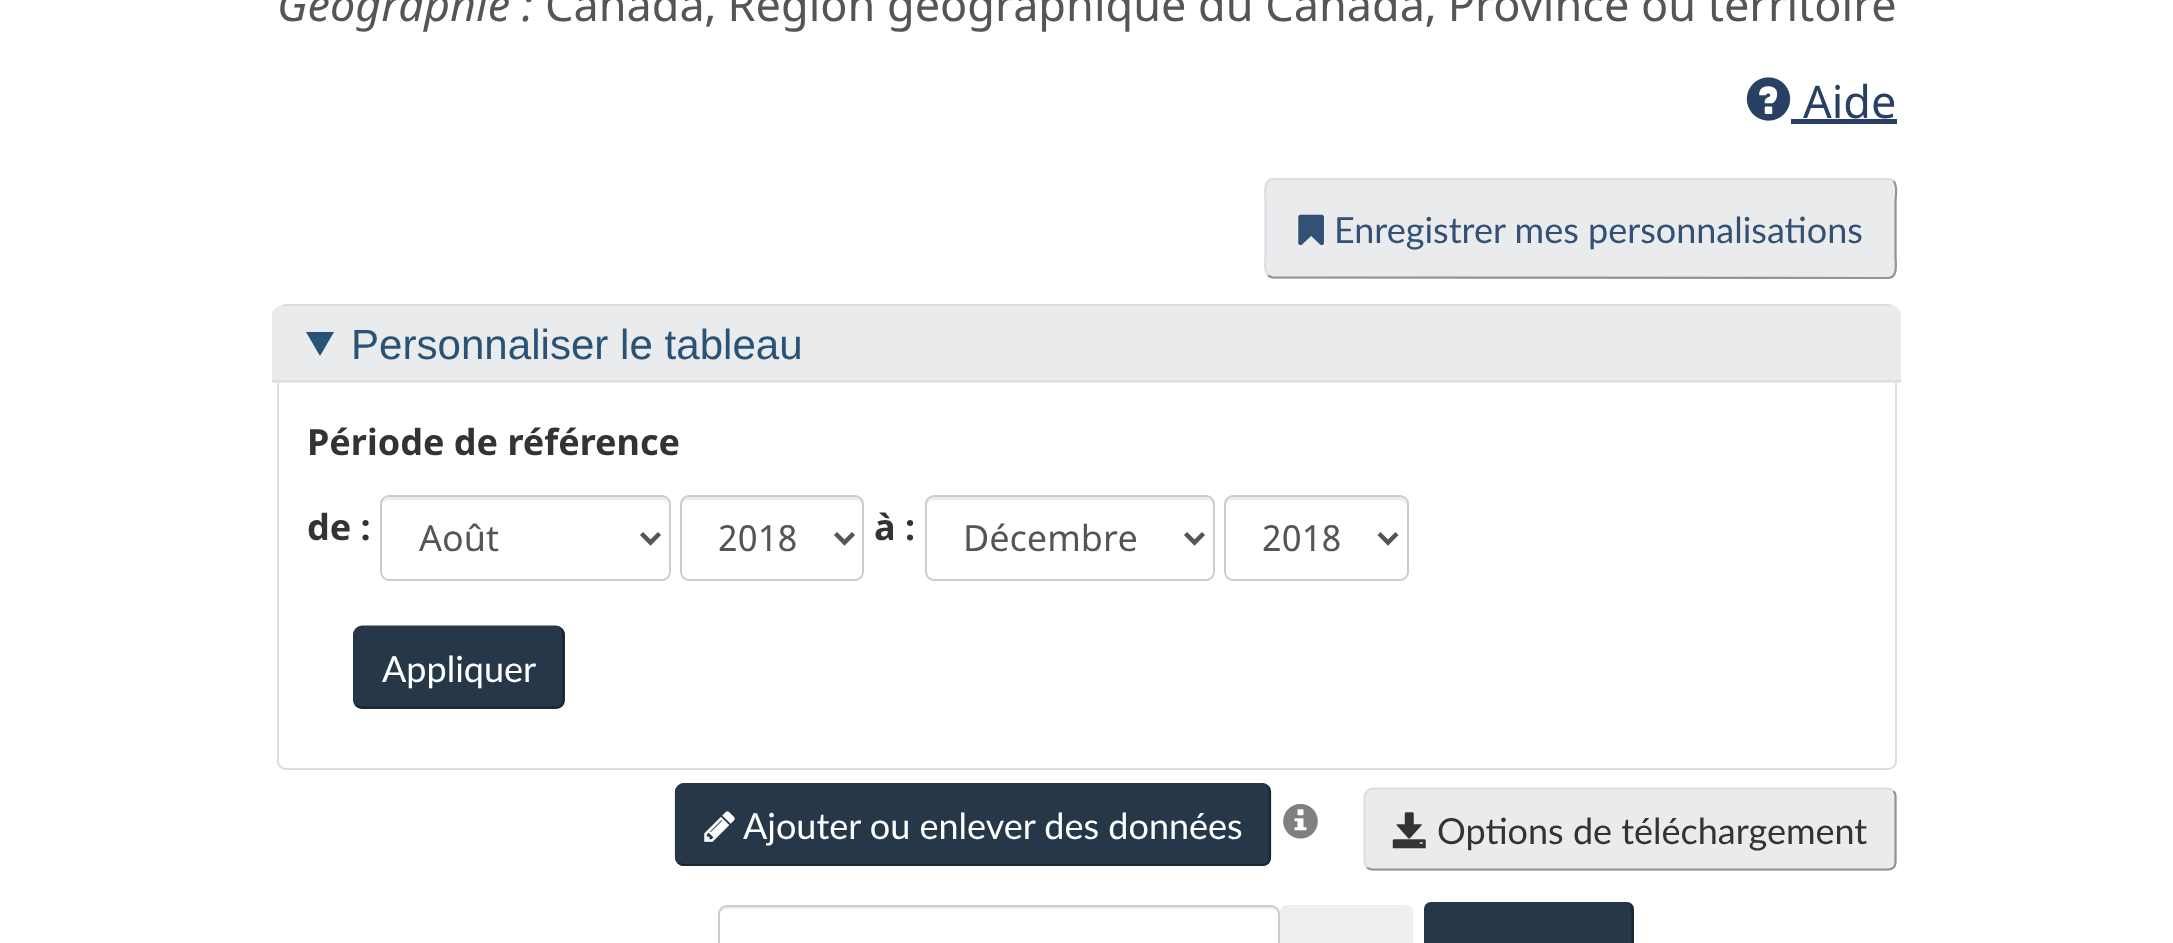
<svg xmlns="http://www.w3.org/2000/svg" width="2173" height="943">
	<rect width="100%" height="100%" fill="#FFFFFF" />
	<text x="277" y="21" font-family="Noto Sans" font-size="45" font-style="italic" fill="#555555">Géographie :</text>
	<text x="545" y="21" font-family="Noto Sans" font-size="45" fill="#555555">Canada, Région géographique du Canada, Province ou territoire</text>
	<image x="1746" y="77" width="45" height="44" href="assets/img1.png" />
	<text x="1803" y="118" font-family="Noto Sans" font-size="45" fill="#284162">Aide</text>
	<rect x="1791" y="119" width="106" height="5" fill="#284162" />
	<rect x="1265" y="178" width="632" height="101" rx="9" fill="#EAEBED" />
	<path d="M1893.5 181C1898 185.5 1895.5 197 1895.5 200.5V256C1895.5 262 1898.5 278 1888 278L1272 277.5L1268 275.5" fill="none" stroke="#939496" stroke-width="2.2" />
	<path d="M1268 275.5C1263.5 271 1265.5 260 1265.5 256V200.5C1265.5 195 1262.5 179 1273.5 179H1889.5L1893.5 181" fill="none" stroke="#DCDEE1" stroke-width="2.2" />
	<image x="1298" y="214" width="26" height="32" href="assets/img2.png" />
	<text x="1334" y="243" font-family="Lato" font-size="36" fill="#335075">Enregistrer mes personnalisations</text>
	<rect x="278" y="305" width="1618" height="464" rx="8" fill="none" stroke="#DDDDDD" stroke-width="2" />
	<path d="M281 306H1892C1897 306 1901 310 1901 315V383H272V315C272 310 276 306 281 306Z" fill="#EAEBED" />
	<rect x="272" y="380" width="1629" height="2" fill="#DDDDDD" />
	<path d="M306 332H334L320 356Z" fill="#295376" />
	<text x="351" y="359" font-family="Liberation Sans" font-size="42.1" fill="#295376">Personnaliser le tableau</text>
	<g font-family="Noto Sans" font-size="36" font-weight="700" fill="#333333">
		<text x="307" y="455">Période de référence</text>
		<text x="307" y="540">de :</text>
	</g>
	<path d="M389 500H662C665 500 668 503 668 506V504C668 500 665 497 661 497H390C386 497 383 500 383 503C384 501 387 500 389 500Z" fill="#ECECEC" />
	<rect x="381" y="496" width="289" height="84" rx="8" fill="none" stroke="#CCCCCC" stroke-width="2" />
	<path d="M641.5 533.5L650.5 542.5L659.5 533.5" fill="none" stroke="#555555" stroke-width="4.5" />
	<text x="419" y="551" font-family="Noto Sans" font-size="36" fill="#555555">Août</text>
	<path d="M688 500H855C859 500 862 503 862 506V504C862 500 859 497 855 497H689C685 497 682 500 682 504V506C682 503 685 500 688 500Z" fill="#ECECEC" />
	<rect x="681" y="496" width="182" height="84" rx="8" fill="none" stroke="#CCCCCC" stroke-width="2" />
	<path d="M835.5 533.5L844.5 542.5L853.5 533.5" fill="none" stroke="#555555" stroke-width="4.5" />
	<text x="718" y="551" font-family="Noto Sans" font-size="36" fill="#555555">2018</text>
	<text x="874" y="540" font-family="Noto Sans" font-size="36" font-weight="700" fill="#333333">à :</text>
	<path d="M934 500H1206C1210 500 1213 503 1213 506C1213 502 1212 498 1207 497H933C928 498 927 502 927 506C927 503 930 500 934 500Z" fill="#ECECEC" />
	<rect x="926" y="496" width="288" height="84" rx="8" fill="none" stroke="#CCCCCC" stroke-width="2" />
	<path d="M1185.5 533.5L1194.5 542.5L1203.5 533.5" fill="none" stroke="#555555" stroke-width="4.5" />
	<text x="963" y="551" font-family="Noto Sans" font-size="36" fill="#555555">Décembre</text>
	<path d="M1233 500H1400C1403 500 1406 503 1406 506V504C1406 500 1403 497 1399 497H1233C1229 497 1226 500 1226 504V506C1226 503 1229 500 1233 500Z" fill="#ECECEC" />
	<rect x="1225" y="496" width="183" height="84" rx="8" fill="none" stroke="#CCCCCC" stroke-width="2" />
	<path d="M1379 533.5L1388 542.5L1397 533.5" fill="none" stroke="#555555" stroke-width="4.5" />
	<text x="1262" y="551" font-family="Noto Sans" font-size="36" fill="#555555">2018</text>
	<rect x="353" y="626" width="212" height="83" rx="9" fill="#26374A" />
	<path d="M561.5 629C563 630.5 563.5 632.5 563.5 634.5V700C563.5 702 563 704 561.5 705.5C560 707 558 707.5 556 707.5H362C360 707.5 358 707 356.5 705.5" fill="none" stroke="#192531" stroke-width="2.2" />
	<path d="M356.5 705.5C355 704 354.5 702 354.5 700V634.5C354.5 632.5 355 630.5 356.5 629C358 627.5 360 626.5 362 626.5H556C558 626.5 560 627.5 561.5 629" fill="none" stroke="#26374A" stroke-width="2.2" />
	<text x="382" y="682" font-family="Lato" font-size="36" fill="#FFFFFF">Appliquer</text>
	<rect x="675" y="783" width="596" height="83" rx="9" fill="#26374A" />
	<path d="M1268 786.5C1269.5 788 1270 790 1270 792V857C1270 859.5 1269.5 861.5 1268 863C1266.5 864.5 1264.5 865 1262 865H684C682 865 680 864.5 678.5 863" fill="none" stroke="#192531" stroke-width="2.2" />
	<path d="M678.5 863C677 861.5 676 859.5 676 857V792C676 790 677 788 678.5 786.5C680 785 682 784 684 784H1262C1264.5 784 1266.5 785 1268 786.5" fill="none" stroke="#26374A" stroke-width="2.2" />
	<image x="704" y="811" width="31" height="31" href="assets/img3.png" />
	<text x="743" y="839" font-family="Lato" font-size="36" fill="#FFFFFF">Ajouter ou enlever des données</text>
	<image x="1283" y="803" width="35" height="36" href="assets/img4.png" />
	<rect x="1364" y="788" width="533" height="83" rx="9" fill="#EAEBED" />
	<path d="M1893.5 791C1895 792.5 1895.5 794.5 1895.5 796.5V862C1895.5 864 1895 866 1893.5 867.5C1892 869 1890 869.5 1888 869.5H1372.5C1370.5 869.5 1368.5 869 1367 867.5" fill="none" stroke="#939496" stroke-width="2.2" />
	<path d="M1367 867.5C1365.5 866 1364.5 864 1364.5 862V796.5C1364.5 794.5 1365.5 792.5 1367 791C1368.5 789.5 1370.5 788.5 1372.5 788.5H1888C1890 788.5 1892 789.5 1893.5 791" fill="none" stroke="#DCDEE1" stroke-width="2.2" />
	<image x="1392" y="812" width="34" height="37" href="assets/img5.png" />
	<text x="1437" y="844" font-family="Lato" font-size="36" fill="#333333">Options de téléchargement</text>
	<path d="M727 909H1271C1275 909 1278 912 1278 916C1278 912 1276 907 1271 907H727C722 907 720 912 720 916C720 912 723 909 727 909Z" fill="#ECECEC" />
	<rect x="719" y="906" width="560" height="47" rx="8" fill="none" stroke="#CCCCCC" stroke-width="2" />
	<rect x="1280" y="905" width="133" height="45" rx="7" fill="#EFEFEF" />
	<rect x="1424" y="902" width="210" height="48" rx="7" fill="#26374A" />
	<path d="M1630.5 905C1632 906 1632.5 907.5 1632.5 909V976.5C1632.5 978 1632 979.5 1630.5 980.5C1629.5 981.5 1628 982 1627 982H1431C1429.5 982 1428 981.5 1427 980.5" fill="none" stroke="#192531" stroke-width="2.2" />
	<path d="M1427 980.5C1426 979.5 1425.5 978 1425.5 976.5V909C1425.5 907.5 1426 906 1427 905C1428 904 1429.5 903.5 1431 903.5H1627C1628 903.5 1629.5 904 1630.5 905" fill="none" stroke="#26374A" stroke-width="2.2" />
</svg>
